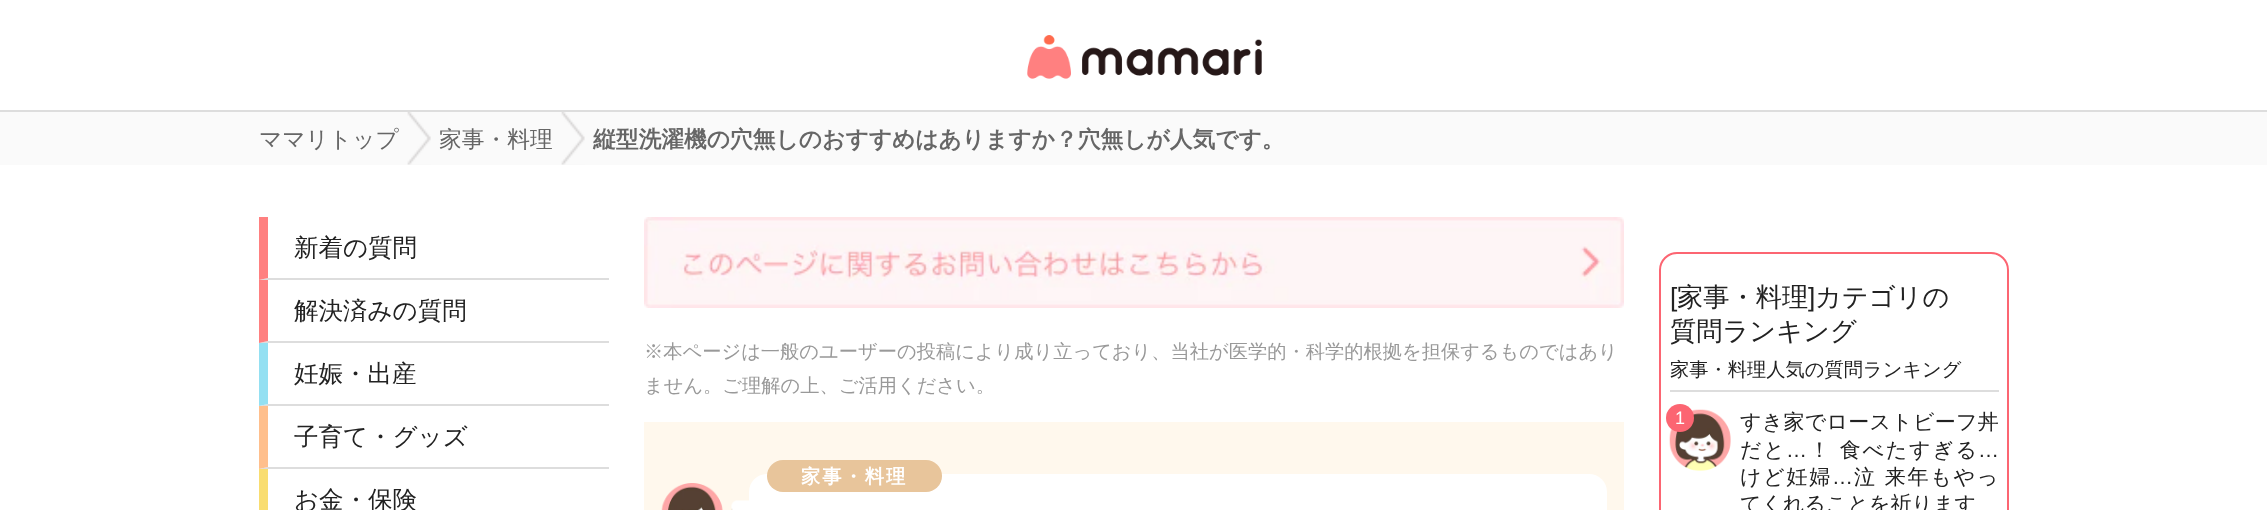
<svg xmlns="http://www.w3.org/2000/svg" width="2267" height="510">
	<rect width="100%" height="100%" fill="#FFFFFF" />
	<rect x="0" y="110" width="2267" height="2" fill="#DDDDDD" />
	<image x="1027" y="35" width="235" height="44" href="assets/img1.png" />
	<rect x="0" y="112" width="2267" height="53" fill="#FAFAFA" />
	<image x="407" y="112" width="24" height="53" href="assets/img2.png" />
	<text x="259" y="147" font-family="WenQuanYi Zen Hei" font-size="22.75" font-weight="500" fill="#666666">ママリトップ</text>
	<image x="561" y="112" width="24" height="53" href="assets/img3.png" />
	<text x="439" y="147" font-family="WenQuanYi Zen Hei" font-size="22.75" font-weight="500" fill="#666666">家事・料理</text>
	<text x="593" y="147" font-family="WenQuanYi Zen Hei" font-size="22.75" font-weight="700" fill="#666666">縦型洗濯機の穴無しのおすすめはありますか？穴無しが人気です。</text>
	<path d="M609 280H259L268 278H609Z" fill="#DDDDDD" />
	<path d="M259 280V217H268V278Z" fill="#FF8080" />
	<text x="294" y="256" font-family="WenQuanYi Zen Hei" font-size="24.5" font-weight="500" fill="#222222">新着の質問</text>
	<path d="M609 343H259L268 341H609Z" fill="#DDDDDD" />
	<path d="M259 343V280H268V341Z" fill="#FF8080" />
	<text x="294" y="319" font-family="WenQuanYi Zen Hei" font-size="24.5" font-weight="500" fill="#222222">解決済みの質問</text>
	<path d="M609 406H259L268 404H609Z" fill="#DDDDDD" />
	<path d="M259 406V343H268V404Z" fill="#94E0F2" />
	<text x="294" y="382" font-family="WenQuanYi Zen Hei" font-size="24.5" font-weight="500" fill="#222222">妊娠・出産</text>
	<path d="M609 469H259L268 467H609Z" fill="#DDDDDD" />
	<path d="M259 469V406H268V467Z" fill="#FFBF8C" />
	<text x="294" y="445" font-family="WenQuanYi Zen Hei" font-size="24.5" font-weight="500" fill="#222222">子育て・グッズ</text>
	<path d="M259 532V469H268V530Z" fill="#F9DD70" />
	<text x="294" y="508" font-family="WenQuanYi Zen Hei" font-size="24.5" font-weight="500" fill="#222222">お金・保険</text>
	<image x="644" y="217" width="980" height="91" href="assets/img4.png" />
	<g font-family="WenQuanYi Zen Hei" font-size="19.25" font-weight="500" fill="#999999">
		<text x="644" y="358">※本ページは一般のユーザーの投稿により成り立っており、当社が医学的・科学的根拠を担保するものではあり</text>
		<text x="644" y="392">ません。ご理解の上、ご活用ください。</text>
	</g>
	<rect x="644" y="422" width="980" height="88" fill="#FFF8ED" />
	<rect x="749" y="474" width="858" height="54" rx="18" fill="#FFFFFF" />
	<rect x="767" y="460" width="175" height="32" rx="16" fill="#E8C59B" />
	<text x="801" y="483" font-family="WenQuanYi Zen Hei" font-size="19.25" font-weight="700" letter-spacing="2" fill="#FFFFFF">家事・料理</text>
	<image x="661" y="483" width="62" height="27" href="assets/img5.png" />
	<image x="731" y="500" width="18" height="10" href="assets/img6.png" />
	<rect x="1660" y="253" width="348" height="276" rx="17" fill="none" stroke="#FC6572" stroke-width="2" />
	<text x="1670" y="306" font-family="Liberation Sans" font-size="26.25" fill="#222222">[</text>
	<text x="1677" y="306" font-family="WenQuanYi Zen Hei" font-size="26.25" font-weight="500" fill="#222222">家事・料理</text>
	<text x="1808" y="306" font-family="Liberation Sans" font-size="26.25" fill="#222222">]</text>
	<g font-family="WenQuanYi Zen Hei" font-size="26.25" font-weight="500" fill="#222222">
		<text x="1815" y="306">カテゴリの</text>
		<text x="1670" y="340">質問ランキング</text>
	</g>
	<rect x="1670" y="390" width="329" height="2" fill="#DDDDDD" />
	<text x="1670" y="376" font-family="WenQuanYi Zen Hei" font-size="19.25" font-weight="500" fill="#222222">家事・料理人気の質問ランキング</text>
	<image x="1669" y="409" width="62" height="62" href="assets/img7.png" />
	<circle cx="1680" cy="418" r="14" fill="#FC6572" />
	<text x="1675" y="424" font-family="Liberation Sans" font-size="18" fill="#FFFFFF">1</text>
	<text x="1740" y="429" font-family="WenQuanYi Zen Hei" font-size="21" font-weight="500" letter-spacing="0.25" fill="#222222">すき家でローストビーフ丼</text>
	<text x="1740" y="457" font-family="WenQuanYi Zen Hei" font-size="21" font-weight="500" letter-spacing="1.75" fill="#222222">だと</text>
	<text x="1786" y="457" font-family="Liberation Sans" font-size="21" letter-spacing="1.75" fill="#222222">…</text>
	<text x="1809" y="457" font-family="WenQuanYi Zen Hei" font-size="21" font-weight="500" letter-spacing="1.75" fill="#222222">！ 食べたすぎる</text>
	<text x="1978" y="457" font-family="Liberation Sans" font-size="21" letter-spacing="1.75" fill="#222222">…</text>
	<text x="1740" y="484" font-family="WenQuanYi Zen Hei" font-size="21" font-weight="500" letter-spacing="1.75" fill="#222222">けど妊婦</text>
	<text x="1832" y="484" font-family="Liberation Sans" font-size="21" letter-spacing="1.75" fill="#222222">…</text>
	<text x="1854" y="484" font-family="WenQuanYi Zen Hei" font-size="21" font-weight="500" letter-spacing="1.75" fill="#222222">泣 来年もやっ</text>
	<text x="1740" y="511" font-family="WenQuanYi Zen Hei" font-size="21" font-weight="500" fill="#222222">てくれることを祈ります</text>
</svg>
